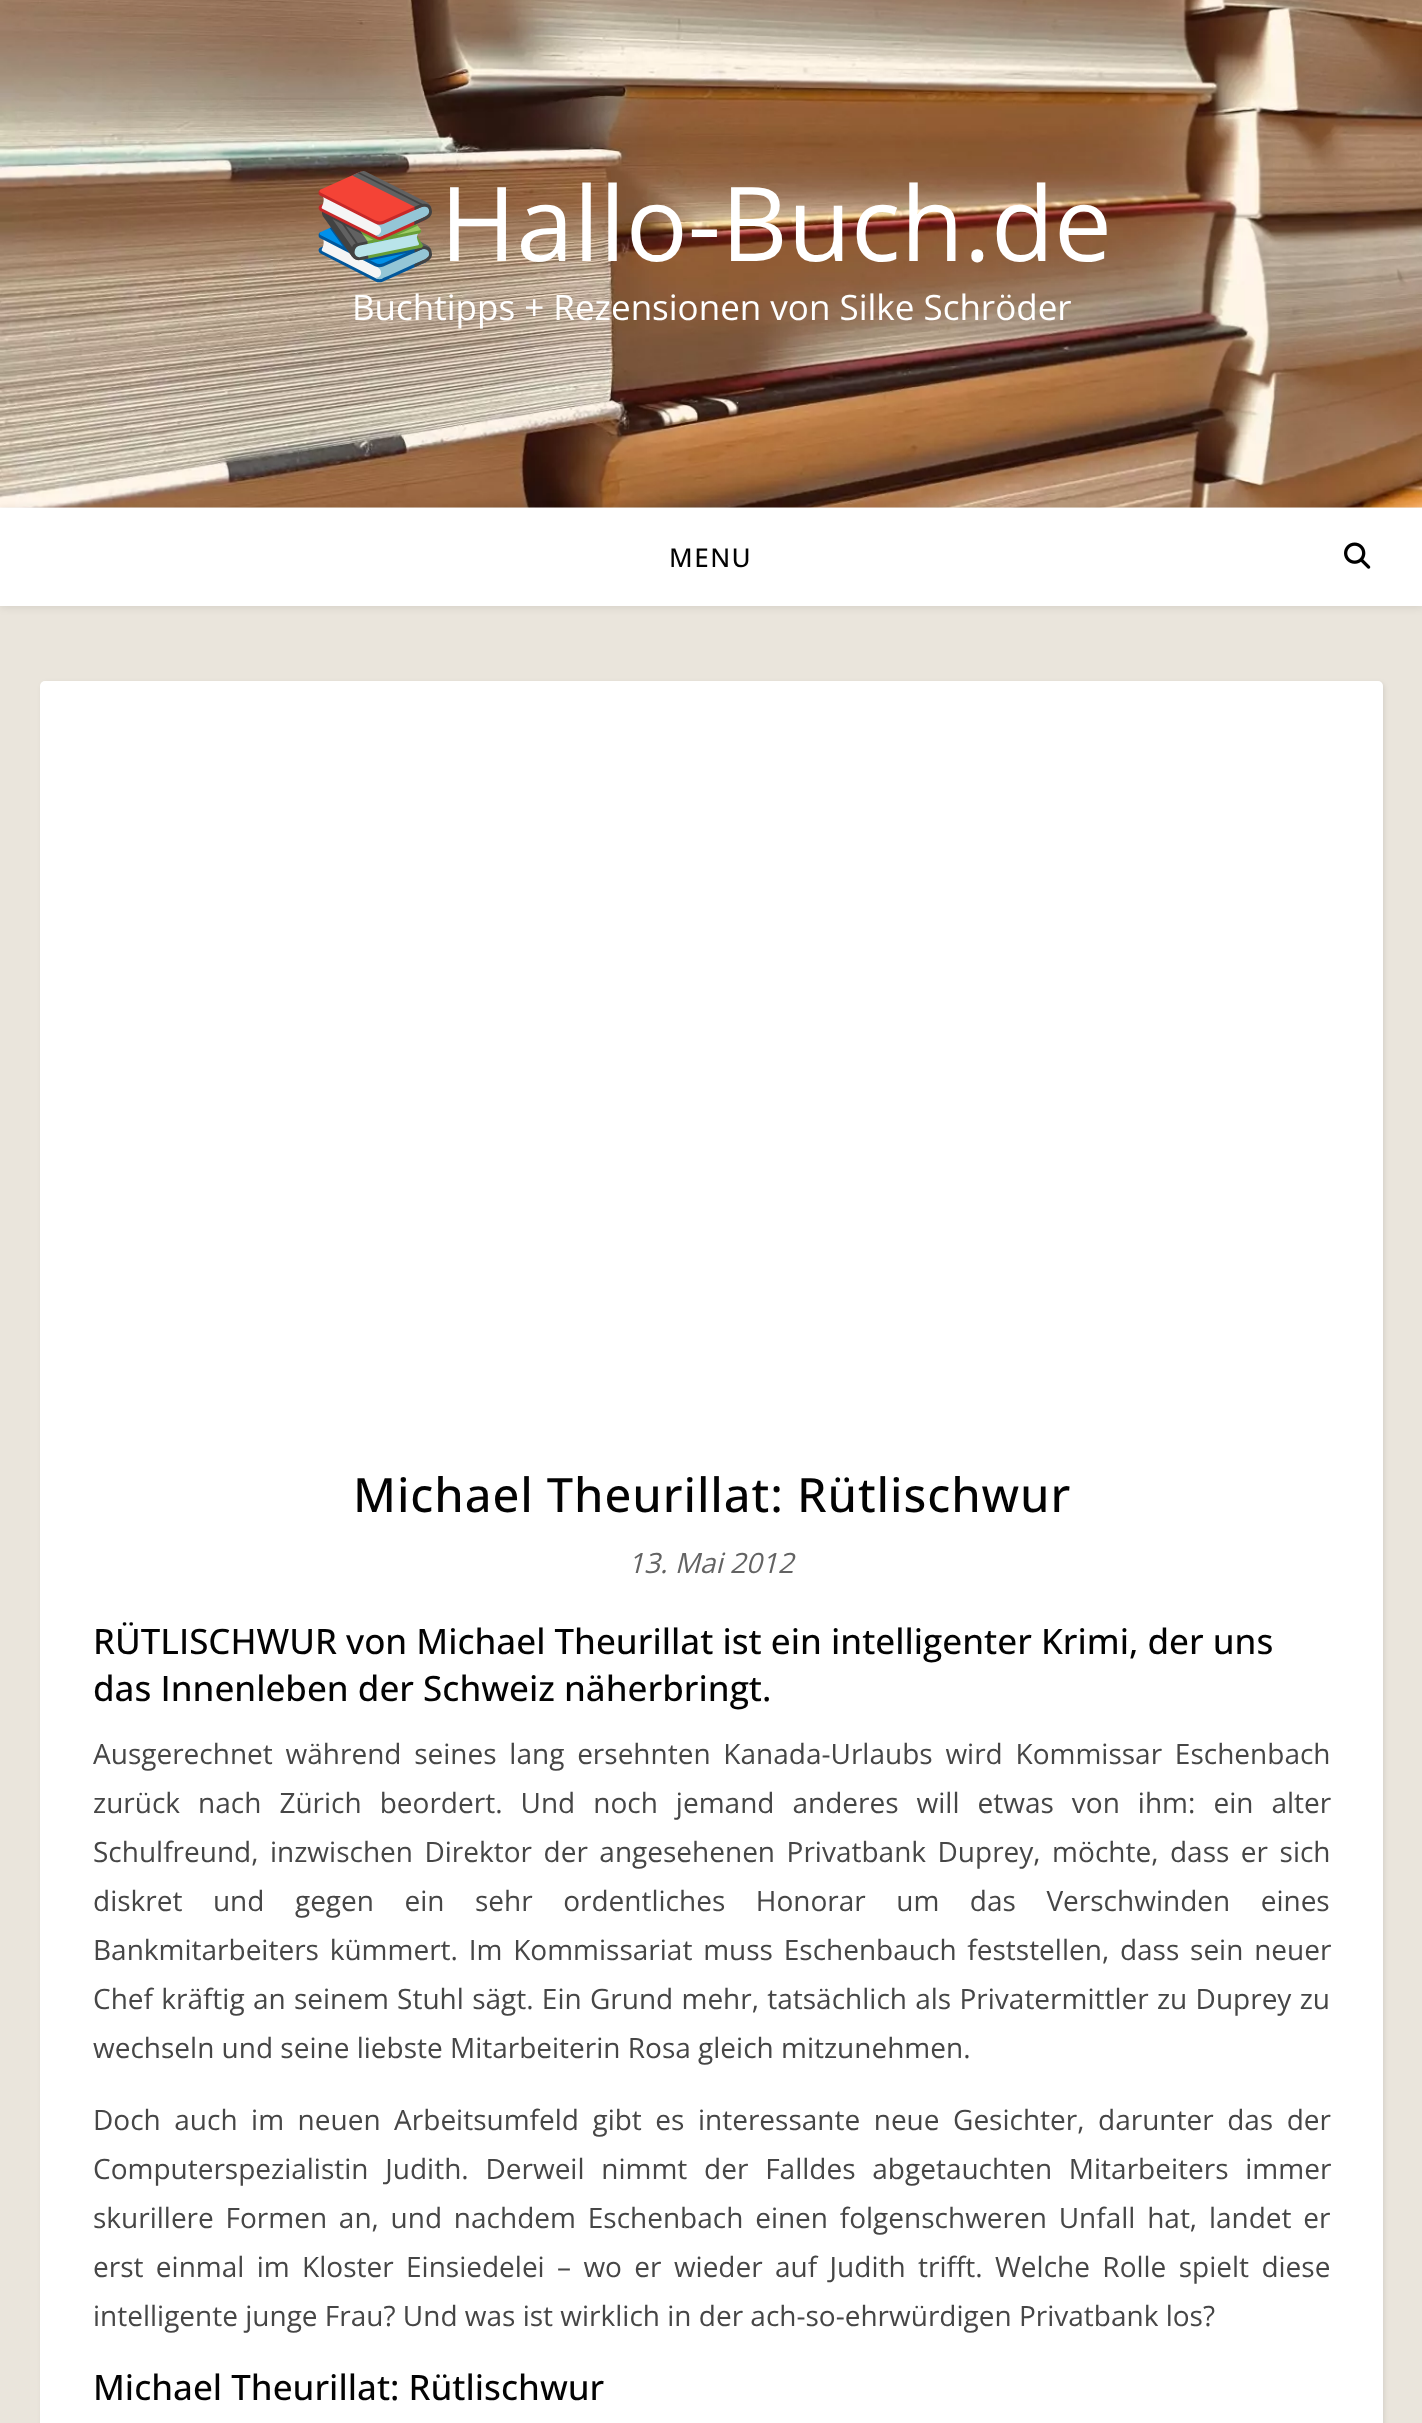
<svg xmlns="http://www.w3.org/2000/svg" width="1422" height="2423">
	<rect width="100%" height="100%" fill="#EAE5DC" />
	<rect x="0" y="507" width="1422" height="1" fill="#FFFFFF" />
	<image x="0" y="0" width="1422" height="508" href="assets/img1.png" />
	<text x="311" y="261" font-family="Noto Color Emoji" font-size="103.25" fill="#FFFFFF">📚</text>
	<text x="440" y="261" font-family="Open Sans" font-size="103.25" fill="#FFFFFF">Hallo-Buch.de</text>
	<text x="352" y="320" font-family="Open Sans" font-size="35" fill="#FFFFFF">Buchtipps + Rezensionen von Silke Schröder</text>
	<rect x="0" y="509" width="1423" height="98" fill="#000000" fill-opacity="0.1" filter="blur(4.5px)" />
	<rect x="0" y="508" width="1422" height="98" fill="#FFFFFF" />
	<text x="669" y="567" font-family="Open Sans" font-size="26" font-weight="500" letter-spacing="1.5" fill="#030303">MENU</text>
	<image x="1344" y="542" width="27" height="27" href="assets/img2.png" />
	<rect x="42" y="683" width="1342" height="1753" rx="5" fill="#000000" fill-opacity="0.1" filter="blur(2.5px)" />
	<rect x="40" y="681" width="1343" height="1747" rx="5" fill="#FFFFFF" />
	<text x="353" y="1512" font-family="Open Sans" font-size="47.25" font-weight="500" letter-spacing="0.9" fill="#030303">Michael Theurillat: Rütlischwur</text>
	<text x="628" y="1573" font-family="Open Sans" font-size="28" font-style="italic" fill="#636363">13. Mai 2012</text>
	<g font-family="Open Sans" font-size="35" font-weight="500" fill="#030303">
		<text x="93" y="1654">RÜTLISCHWUR von Michael Theurillat ist ein intelligenter Krimi, der uns</text>
		<text x="93" y="1701">das Innenleben der Schweiz näherbringt.</text>
	</g>
	<g font-family="Open Sans" font-size="28" fill="#464646">
		<text x="93" y="1764" word-spacing="5.5">Ausgerechnet während seines lang ersehnten Kanada-Urlaubs wird Kommissar Eschenbach</text>
		<text x="93" y="1813" word-spacing="10.75">zurück nach Zürich beordert. Und noch jemand anderes will etwas von ihm: ein alter</text>
		<text x="93" y="1862" word-spacing="4.25">Schulfreund, inzwischen Direktor der angesehenen Privatbank Duprey, möchte, dass er sich</text>
		<text x="93" y="1911" word-spacing="23.25">diskret und gegen ein sehr ordentliches Honorar um das Verschwinden eines</text>
		<text x="93" y="1960" word-spacing="3.5">Bankmitarbeiters kümmert. Im Kommissariat muss Eschenbauch feststellen, dass sein neuer</text>
		<text x="93" y="2009" word-spacing="1">Chef kräftig an seinem Stuhl sägt. Ein Grund mehr, tatsächlich als Privatermittler zu Duprey zu</text>
		<text x="93" y="2058">wechseln und seine liebste Mitarbeiterin Rosa gleich mitzunehmen.</text>
		<text x="93" y="2130" word-spacing="6.25">Doch auch im neuen Arbeitsumfeld gibt es interessante neue Gesichter, darunter das der</text>
		<text x="93" y="2179" word-spacing="9.5">Computerspezialistin Judith. Derweil nimmt der Falldes abgetauchten Mitarbeiters immer</text>
		<text x="93" y="2228" word-spacing="4.5">skurillere Formen an, und nachdem Eschenbach einen folgenschweren Unfall hat, landet er</text>
		<text x="93" y="2277" word-spacing="5.1">erst einmal im Kloster Einsiedelei – wo er wieder auf Judith trifft. Welche Rolle spielt diese</text>
		<text x="93" y="2326">intelligente junge Frau? Und was ist wirklich in der ach-so-ehrwürdigen Privatbank los?</text>
	</g>
	<text x="93" y="2400" font-family="Open Sans" font-size="35" font-weight="500" fill="#030303">Michael Theurillat: Rütlischwur</text>
</svg>
